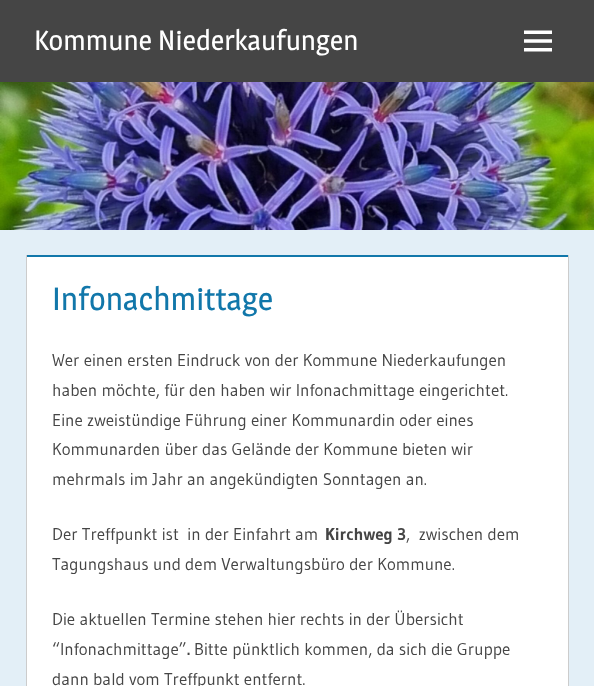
<svg xmlns="http://www.w3.org/2000/svg" width="594" height="686">
	<rect width="100%" height="100%" fill="#E3EFF7" />
	<rect x="0" y="0" width="594" height="82" fill="#454545" />
	<text x="34" y="50" font-family="Magra" font-size="28" fill="#FFFFFF">Kommune Niederkaufungen</text>
	<image x="524" y="30" width="28" height="22" href="assets/img1.png" />
	<image x="0" y="82" width="594" height="148" href="assets/img2.png" />
	<rect x="27" y="257" width="541" height="429" fill="#FFFFFF" />
	<rect x="27" y="255" width="541" height="2" fill="#1177AA" />
	<path d="M569 255V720L568 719V255Z" fill="#CCCCCC" />
	<path d="M26 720V255H27V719Z" fill="#CCCCCC" />
	<text x="52" y="310" font-family="Magra" font-size="32" fill="#1177AA">Infonachmittage</text>
	<g font-family="Gudea" font-size="17" fill="#454545">
		<text x="52" y="366">Wer einen ersten Eindruck von der Kommune Niederkaufungen</text>
		<text x="52" y="396">haben möchte, für den haben wir Infonachmittage eingerichtet.</text>
		<text x="52" y="426">Eine zweistündige Führung einer Kommunardin oder eines</text>
		<text x="52" y="455">Kommunarden über das Gelände der Kommune bieten wir</text>
		<text x="52" y="485">mehrmals im Jahr an angekündigten Sonntagen an.</text>
		<text x="52" y="540" xml:space="preserve">Der Treffpunkt ist  in der Einfahrt am</text>
	</g>
	<text x="325" y="540" font-family="Gudea" font-size="17" font-weight="700" fill="#454545">Kirchweg 3</text>
	<g font-family="Gudea" font-size="17" fill="#454545">
		<text x="406" y="540" xml:space="preserve">,  zwischen dem</text>
		<text x="52" y="570">Tagungshaus und dem Verwaltungsbüro der Kommune.</text>
		<text x="52" y="625">Die aktuellen Termine stehen hier rechts in der Übersicht</text>
		<text x="52" y="655">“Infonachmittage”</text>
	</g>
	<text x="187" y="655" font-family="Gudea" font-size="17" font-weight="700" fill="#454545">.</text>
	<g font-family="Gudea" font-size="17" fill="#454545">
		<text x="194" y="655">Bitte pünktlich kommen, da sich die Gruppe</text>
		<text x="52" y="685">dann bald vom Treffpunkt entfernt.</text>
	</g>
</svg>
